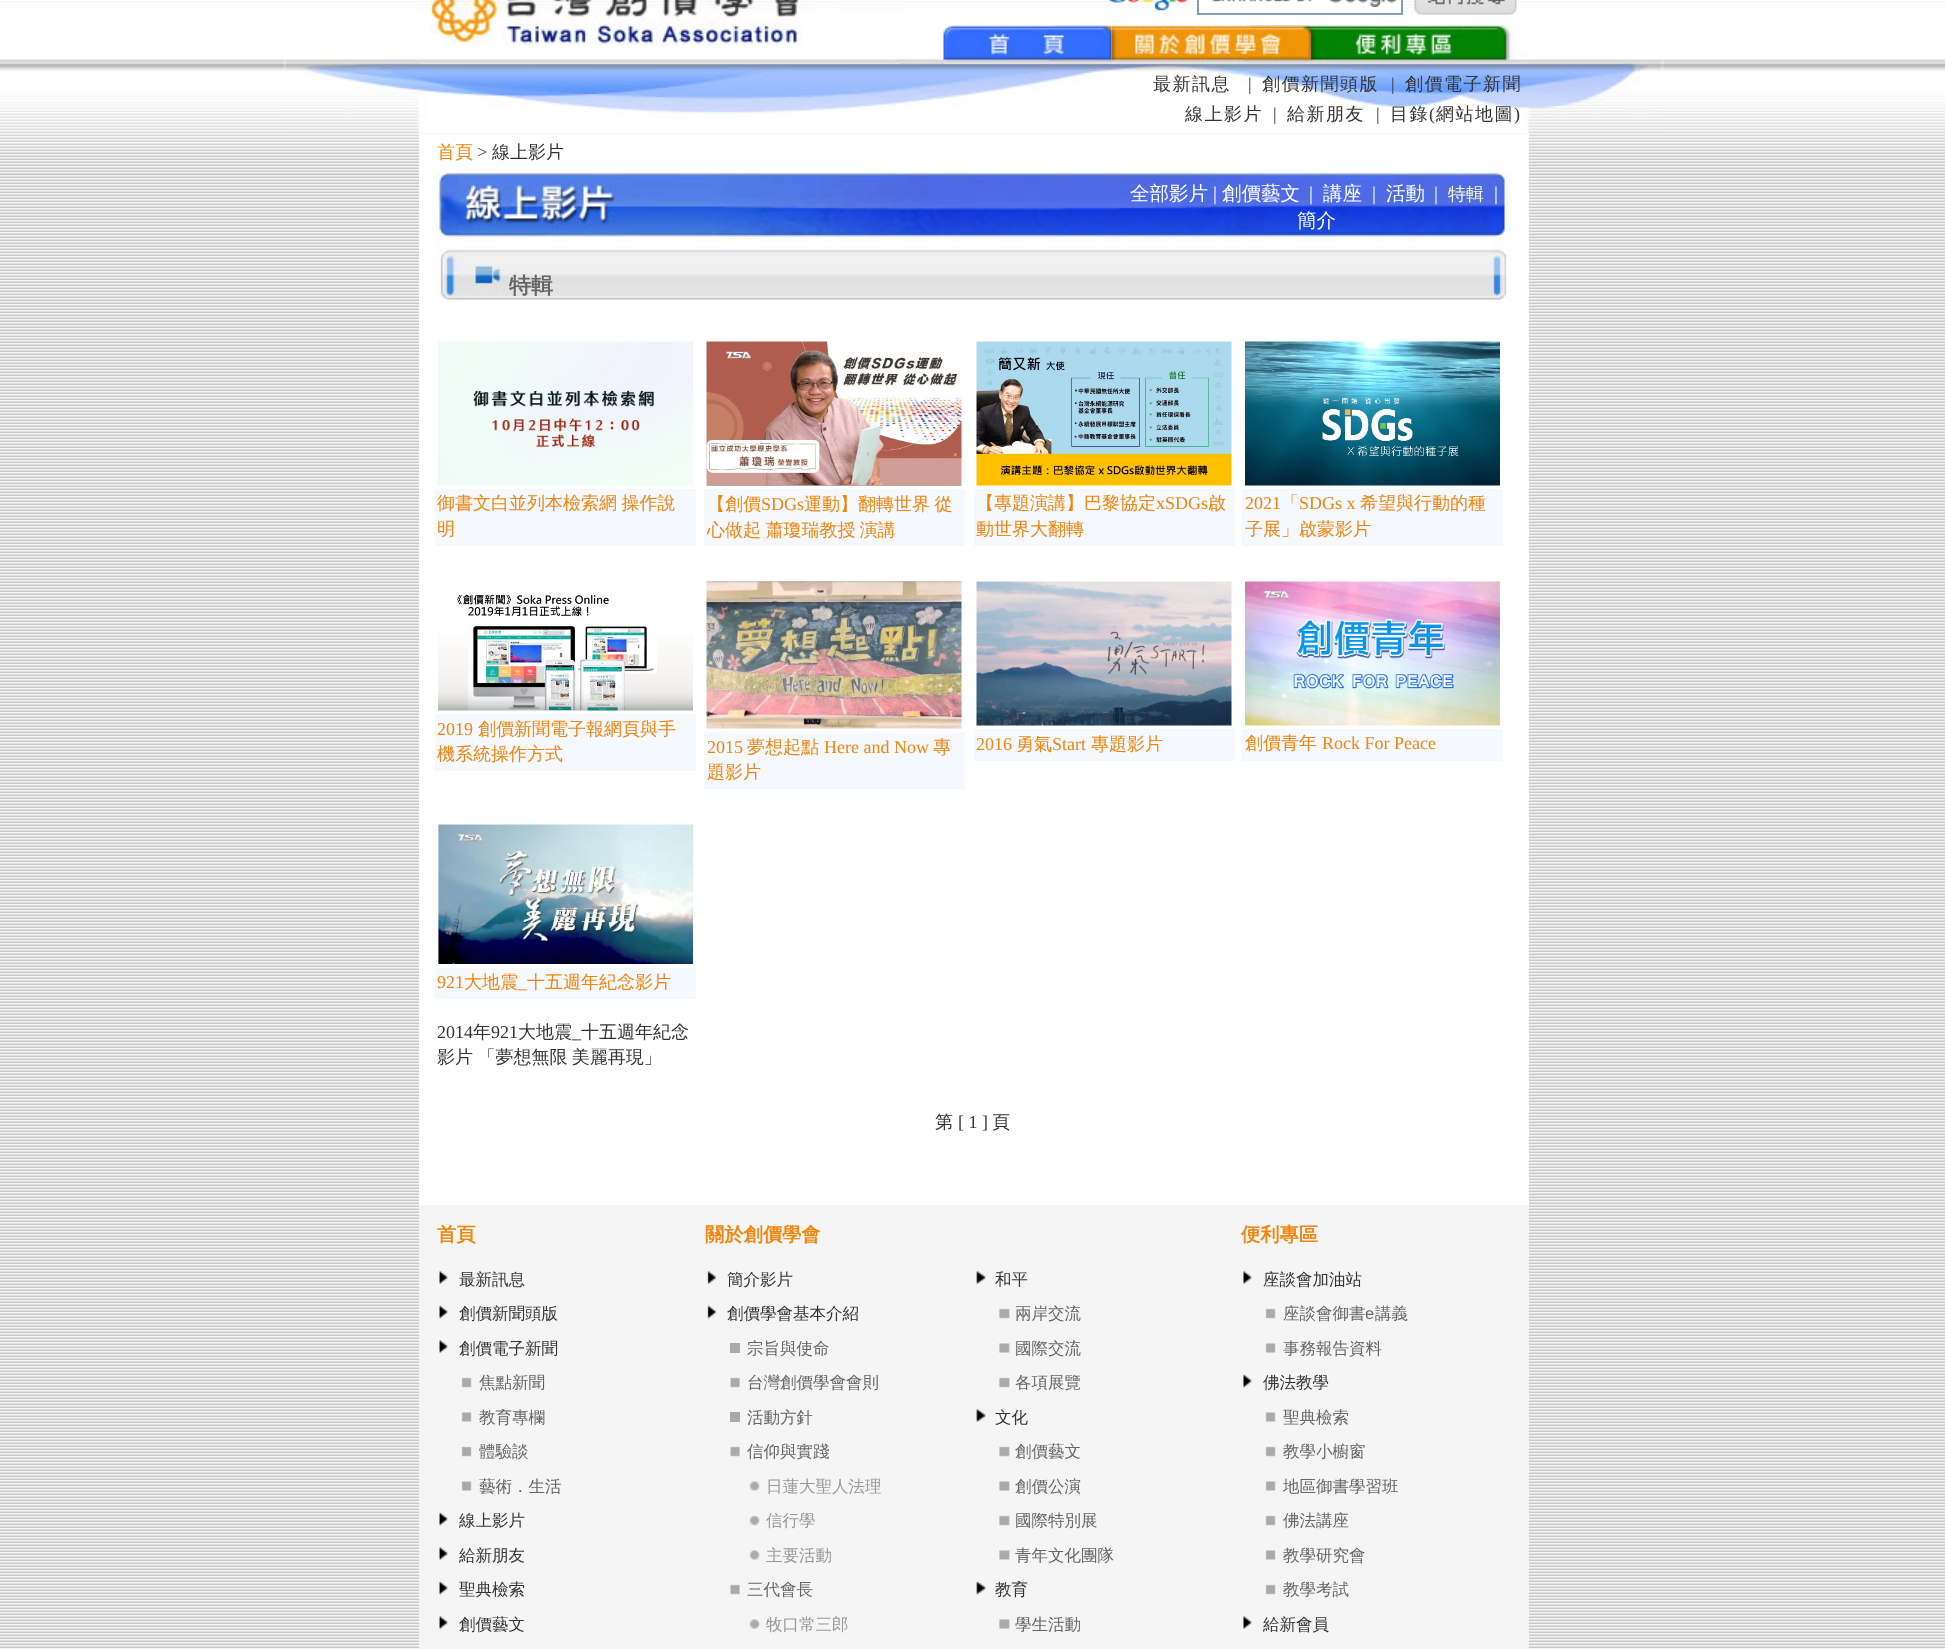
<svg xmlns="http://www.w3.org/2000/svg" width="1945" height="1649">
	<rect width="100%" height="100%" fill="#FFFFFF" />
	<image x="0" y="175" width="1945" height="1474" href="assets/img1.png" />
	<image x="0" y="0" width="1945" height="175" href="assets/img2.png" />
	<image x="283" y="58" width="1381" height="75" href="assets/img3.png" />
	<image x="418" y="0" width="482" height="64" href="assets/img4.png" />
	<image x="1108" y="0" width="81" height="11" href="assets/img5.png" />
	<rect x="1199" y="1" width="202" height="8" fill="#FFFFFF" />
	<image x="1212" y="0" width="185" height="7" href="assets/img6.png" />
	<rect x="1198" y="-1" width="204" height="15" fill="none" stroke="#7F9DB9" stroke-width="2" />
	<image x="1414" y="0" width="103" height="15" href="assets/img7.png" />
	<image x="943" y="25" width="169" height="39" href="assets/img8.png" />
	<image x="1111" y="25" width="200" height="39" href="assets/img9.png" />
	<image x="1311" y="25" width="218" height="39" href="assets/img10.png" />
	<text x="1153" y="90" font-family="WenQuanYi Zen Hei" font-size="18" font-weight="500" letter-spacing="1.5" fill="#343434">最新訊息</text>
	<text x="1248" y="90" font-family="Liberation Serif" font-size="18" fill="#343434">|</text>
	<text x="1262" y="90" font-family="WenQuanYi Zen Hei" font-size="18" font-weight="500" letter-spacing="1.5" fill="#343434">創價新聞頭版</text>
	<text x="1391" y="90" font-family="Liberation Serif" font-size="18" fill="#343434">|</text>
	<g font-family="WenQuanYi Zen Hei" font-size="18" font-weight="500" letter-spacing="1.5" fill="#343434">
		<text x="1405" y="90">創價電子新聞</text>
		<text x="1185" y="120">線上影片</text>
	</g>
	<text x="1273" y="120" font-family="Liberation Serif" font-size="18" fill="#343434">|</text>
	<text x="1287" y="120" font-family="WenQuanYi Zen Hei" font-size="18" font-weight="500" letter-spacing="1.5" fill="#343434">給新朋友</text>
	<text x="1376" y="120" font-family="Liberation Serif" font-size="18" fill="#343434">|</text>
	<text x="1390" y="120" font-family="WenQuanYi Zen Hei" font-size="18" font-weight="500" letter-spacing="1.5" fill="#343434">目錄</text>
	<text x="1429" y="120" font-family="Liberation Serif" font-size="18" letter-spacing="1.5" fill="#343434">(</text>
	<text x="1436" y="120" font-family="WenQuanYi Zen Hei" font-size="18" font-weight="500" letter-spacing="1.5" fill="#343434">網站地圖</text>
	<text x="1514" y="120" font-family="Liberation Serif" font-size="18" letter-spacing="1.5" fill="#343434">)</text>
	<rect x="419" y="134" width="1110" height="1071" fill="#FFFFFF" />
	<text x="437" y="158" font-family="WenQuanYi Zen Hei" font-size="18" font-weight="500" fill="#F0850F">首頁</text>
	<text x="477" y="158" font-family="Liberation Serif" font-size="18" fill="#343434">&gt;</text>
	<text x="492" y="158" font-family="WenQuanYi Zen Hei" font-size="18" font-weight="500" fill="#343434">線上影片</text>
	<image x="435" y="172" width="1077" height="71" href="assets/img11.png" />
	<text x="1130" y="200" font-family="WenQuanYi Zen Hei" font-size="19.5" font-weight="500" fill="#FFFFFF">全部影片</text>
	<text x="1213" y="200" font-family="Liberation Serif" font-size="19.5" fill="#FFFFFF">|</text>
	<text x="1222" y="200" font-family="WenQuanYi Zen Hei" font-size="19.5" font-weight="500" fill="#FFFFFF">創價藝文</text>
	<text x="1309" y="200" font-family="Liberation Serif" font-size="19.5" fill="#FFFFFF">|</text>
	<text x="1323" y="200" font-family="WenQuanYi Zen Hei" font-size="19.5" font-weight="500" fill="#FFFFFF">講座</text>
	<text x="1372" y="200" font-family="Liberation Serif" font-size="19.5" fill="#FFFFFF">|</text>
	<text x="1386" y="200" font-family="WenQuanYi Zen Hei" font-size="19.5" font-weight="500" fill="#FFFFFF">活動</text>
	<text x="1434" y="200" font-family="Liberation Serif" font-size="19.5" fill="#FFFFFF">|</text>
	<text x="1448" y="200" font-family="WenQuanYi Zen Hei" font-size="18" font-weight="500" fill="#FFFFCC">特輯</text>
	<text x="1494" y="200" font-family="Liberation Serif" font-size="19.5" fill="#FFFFFF">|</text>
	<text x="1297" y="227" font-family="WenQuanYi Zen Hei" font-size="19.5" font-weight="500" fill="#FFFFFF">簡介</text>
	<image x="435" y="243" width="1077" height="59" href="assets/img12.png" />
	<text x="509" y="293" font-family="WenQuanYi Zen Hei" font-size="22" font-weight="700" fill="#666666">特輯</text>
	<image x="438" y="341" width="255" height="145" href="assets/img13.png" />
	<rect x="435" y="489" width="261" height="57" fill="#F5F8FD" />
	<g font-family="WenQuanYi Zen Hei" font-size="18" font-weight="500" fill="#F0850F">
		<text x="437" y="509" word-spacing="-1">御書文白並列本檢索網 操作說</text>
		<text x="437" y="535">明</text>
	</g>
	<image x="706" y="341" width="256" height="145" href="assets/img14.png" />
	<rect x="704" y="489" width="261" height="57" fill="#F5F8FD" />
	<text x="707" y="510" font-family="WenQuanYi Zen Hei" font-size="18" font-weight="500" fill="#F0850F">【創價</text>
	<text x="761" y="510" font-family="Liberation Serif" font-size="18" fill="#F0850F">SDGs</text>
	<g font-family="WenQuanYi Zen Hei" font-size="18" font-weight="500" fill="#F0850F">
		<text x="804" y="510" word-spacing="-1">運動】翻轉世界 從</text>
		<text x="707" y="536" word-spacing="-1">心做起 蕭瓊瑞教授 演講</text>
	</g>
	<image x="976" y="341" width="256" height="145" href="assets/img15.png" />
	<rect x="974" y="489" width="261" height="57" fill="#F5F8FD" />
	<text x="976" y="509" font-family="WenQuanYi Zen Hei" font-size="18" font-weight="500" fill="#F0850F">【專題演講】巴黎協定</text>
	<text x="1156" y="509" font-family="Liberation Serif" font-size="18" fill="#F0850F">xSDGs</text>
	<g font-family="WenQuanYi Zen Hei" font-size="18" font-weight="500" fill="#F0850F">
		<text x="1208" y="509">啟</text>
		<text x="976" y="535">動世界大翻轉</text>
	</g>
	<image x="1245" y="341" width="255" height="145" href="assets/img16.png" />
	<rect x="1242" y="489" width="261" height="57" fill="#F5F8FD" />
	<text x="1245" y="509" font-family="Liberation Serif" font-size="18" fill="#F0850F">2021</text>
	<text x="1281" y="509" font-family="WenQuanYi Zen Hei" font-size="18" font-weight="500" fill="#F0850F">「</text>
	<text x="1299" y="509" font-family="Liberation Serif" font-size="18" fill="#F0850F">SDGs x</text>
	<g font-family="WenQuanYi Zen Hei" font-size="18" font-weight="500" fill="#F0850F">
		<text x="1360" y="509">希望與行動的種</text>
		<text x="1245" y="535">子展」啟蒙影片</text>
	</g>
	<image x="438" y="594" width="255" height="117" href="assets/img17.png" />
	<rect x="435" y="714" width="261" height="57" fill="#F5F8FD" />
	<text x="437" y="735" font-family="Liberation Serif" font-size="18" fill="#F0850F">2019</text>
	<g font-family="WenQuanYi Zen Hei" font-size="18" font-weight="500" fill="#F0850F">
		<text x="478" y="735">創價新聞電子報網頁與手</text>
		<text x="437" y="760">機系統操作方式</text>
	</g>
	<image x="706" y="581" width="256" height="148" href="assets/img18.png" />
	<rect x="704" y="732" width="261" height="57" fill="#F5F8FD" />
	<text x="707" y="753" font-family="Liberation Serif" font-size="18" fill="#F0850F">2015</text>
	<text x="747" y="753" font-family="WenQuanYi Zen Hei" font-size="18" font-weight="500" fill="#F0850F">夢想起點</text>
	<text x="824" y="753" font-family="Liberation Serif" font-size="18" fill="#F0850F">Here and Now</text>
	<g font-family="WenQuanYi Zen Hei" font-size="18" font-weight="500" fill="#F0850F">
		<text x="933" y="753">專</text>
		<text x="707" y="778">題影片</text>
	</g>
	<image x="976" y="581" width="256" height="145" href="assets/img19.png" />
	<rect x="974" y="729" width="261" height="32" fill="#F5F8FD" />
	<text x="976" y="750" font-family="Liberation Serif" font-size="18" fill="#F0850F">2016</text>
	<text x="1016" y="750" font-family="WenQuanYi Zen Hei" font-size="18" font-weight="500" fill="#F0850F">勇氣</text>
	<text x="1052" y="750" font-family="Liberation Serif" font-size="18" fill="#F0850F">Start</text>
	<text x="1091" y="750" font-family="WenQuanYi Zen Hei" font-size="18" font-weight="500" fill="#F0850F">專題影片</text>
	<image x="1245" y="581" width="255" height="145" href="assets/img20.png" />
	<rect x="1242" y="729" width="261" height="32" fill="#F5F8FD" />
	<text x="1245" y="749" font-family="WenQuanYi Zen Hei" font-size="18" font-weight="500" fill="#F0850F">創價青年</text>
	<text x="1322" y="749" font-family="Liberation Serif" font-size="18" fill="#F0850F">Rock For Peace</text>
	<image x="438" y="824" width="255" height="140" href="assets/img21.png" />
	<rect x="435" y="968" width="261" height="31" fill="#F5F8FD" />
	<text x="437" y="988" font-family="Liberation Serif" font-size="18" fill="#F0850F">921</text>
	<text x="464" y="988" font-family="WenQuanYi Zen Hei" font-size="18" font-weight="500" fill="#F0850F">大地震</text>
	<text x="518" y="988" font-family="Liberation Serif" font-size="18" fill="#F0850F">_</text>
	<text x="527" y="988" font-family="WenQuanYi Zen Hei" font-size="18" font-weight="500" fill="#F0850F">十五週年紀念影片</text>
	<text x="437" y="1038" font-family="Liberation Serif" font-size="18" fill="#343434">2014</text>
	<text x="473" y="1038" font-family="WenQuanYi Zen Hei" font-size="18" font-weight="500" fill="#343434">年</text>
	<text x="491" y="1038" font-family="Liberation Serif" font-size="18" fill="#343434">921</text>
	<text x="518" y="1038" font-family="WenQuanYi Zen Hei" font-size="18" font-weight="500" fill="#343434">大地震</text>
	<text x="572" y="1038" font-family="Liberation Serif" font-size="18" fill="#343434">_</text>
	<g font-family="WenQuanYi Zen Hei" font-size="18" font-weight="500" fill="#343434">
		<text x="581" y="1038">十五週年紀念</text>
		<text x="437" y="1063" word-spacing="-1">影片 「夢想無限 美麗再現」</text>
		<text x="935" y="1128">第</text>
	</g>
	<text x="958" y="1128" font-family="Liberation Serif" font-size="18" fill="#343434">[ 1 ]</text>
	<text x="992" y="1128" font-family="WenQuanYi Zen Hei" font-size="18" font-weight="500" fill="#343434">頁</text>
	<rect x="419" y="1205" width="1110" height="444" fill="#F6F5F5" />
	<text x="437" y="1241" font-family="WenQuanYi Zen Hei" font-size="19.25" font-weight="700" fill="#F0850F">首頁</text>
	<image x="439" y="1271" width="9" height="13" href="assets/img22.png" />
	<text x="459" y="1285" font-family="WenQuanYi Zen Hei" font-size="16.5" font-weight="500" fill="#343434">最新訊息</text>
	<image x="439" y="1305" width="9" height="14" href="assets/img23.png" />
	<text x="459" y="1319" font-family="WenQuanYi Zen Hei" font-size="16.5" font-weight="500" fill="#343434">創價新聞頭版</text>
	<image x="439" y="1340" width="9" height="13" href="assets/img22.png" />
	<text x="459" y="1354" font-family="WenQuanYi Zen Hei" font-size="16.5" font-weight="500" fill="#343434">創價電子新聞</text>
	<image x="461" y="1377" width="11" height="11" href="assets/img24.png" />
	<text x="479" y="1388" font-family="WenQuanYi Zen Hei" font-size="16.5" font-weight="500" fill="#666666">焦點新聞</text>
	<image x="461" y="1412" width="11" height="10" href="assets/img25.png" />
	<text x="479" y="1423" font-family="WenQuanYi Zen Hei" font-size="16.5" font-weight="500" fill="#666666">教育專欄</text>
	<image x="461" y="1446" width="11" height="11" href="assets/img24.png" />
	<text x="479" y="1457" font-family="WenQuanYi Zen Hei" font-size="16.5" font-weight="500" fill="#666666">體驗談</text>
	<image x="461" y="1481" width="11" height="10" href="assets/img25.png" />
	<text x="479" y="1492" font-family="WenQuanYi Zen Hei" font-size="16.5" font-weight="500" fill="#666666">藝術．生活</text>
	<image x="439" y="1512" width="9" height="14" href="assets/img23.png" />
	<text x="459" y="1526" font-family="WenQuanYi Zen Hei" font-size="16.5" font-weight="500" fill="#343434">線上影片</text>
	<image x="439" y="1547" width="9" height="13" href="assets/img22.png" />
	<text x="459" y="1561" font-family="WenQuanYi Zen Hei" font-size="16.5" font-weight="500" fill="#343434">給新朋友</text>
	<image x="439" y="1581" width="9" height="14" href="assets/img23.png" />
	<text x="459" y="1595" font-family="WenQuanYi Zen Hei" font-size="16.5" font-weight="500" fill="#343434">聖典檢索</text>
	<image x="439" y="1616" width="9" height="13" href="assets/img22.png" />
	<text x="459" y="1630" font-family="WenQuanYi Zen Hei" font-size="16.5" font-weight="500" fill="#343434">創價藝文</text>
	<text x="705" y="1241" font-family="WenQuanYi Zen Hei" font-size="19.25" font-weight="700" fill="#F0850F">關於創價學會</text>
	<image x="707" y="1271" width="10" height="13" href="assets/img26.png" />
	<text x="727" y="1285" font-family="WenQuanYi Zen Hei" font-size="16.5" font-weight="500" fill="#343434">簡介影片</text>
	<image x="707" y="1305" width="10" height="14" href="assets/img27.png" />
	<text x="727" y="1319" font-family="WenQuanYi Zen Hei" font-size="16.5" font-weight="500" fill="#343434">創價學會基本介紹</text>
	<rect x="730" y="1343" width="10" height="10" fill="#AAAAAA" />
	<text x="747" y="1354" font-family="WenQuanYi Zen Hei" font-size="16.5" font-weight="500" fill="#666666">宗旨與使命</text>
	<image x="730" y="1377" width="10" height="11" href="assets/img28.png" />
	<text x="747" y="1388" font-family="WenQuanYi Zen Hei" font-size="16.5" font-weight="500" fill="#666666">台灣創價學會會則</text>
	<rect x="730" y="1412" width="10" height="10" fill="#AAAAAA" />
	<text x="747" y="1423" font-family="WenQuanYi Zen Hei" font-size="16.5" font-weight="500" fill="#666666">活動方針</text>
	<image x="730" y="1446" width="10" height="11" href="assets/img28.png" />
	<text x="747" y="1457" font-family="WenQuanYi Zen Hei" font-size="16.5" font-weight="500" fill="#666666">信仰與實踐</text>
	<image x="749" y="1481" width="11" height="10" href="assets/img29.png" />
	<text x="766" y="1492" font-family="WenQuanYi Zen Hei" font-size="16.5" font-weight="500" fill="#999999">日蓮大聖人法理</text>
	<image x="749" y="1515" width="11" height="11" href="assets/img30.png" />
	<text x="766" y="1526" font-family="WenQuanYi Zen Hei" font-size="16.5" font-weight="500" fill="#999999">信行學</text>
	<image x="749" y="1550" width="11" height="10" href="assets/img29.png" />
	<text x="766" y="1561" font-family="WenQuanYi Zen Hei" font-size="16.5" font-weight="500" fill="#999999">主要活動</text>
	<image x="730" y="1584" width="10" height="11" href="assets/img28.png" />
	<text x="747" y="1595" font-family="WenQuanYi Zen Hei" font-size="16.5" font-weight="500" fill="#666666">三代會長</text>
	<image x="749" y="1619" width="11" height="10" href="assets/img29.png" />
	<text x="766" y="1630" font-family="WenQuanYi Zen Hei" font-size="16.5" font-weight="500" fill="#999999">牧口常三郎</text>
	<image x="976" y="1271" width="10" height="13" href="assets/img31.png" />
	<text x="995" y="1285" font-family="WenQuanYi Zen Hei" font-size="16.5" font-weight="500" fill="#343434">和平</text>
	<image x="999" y="1308" width="11" height="11" href="assets/img32.png" />
	<text x="1015" y="1319" font-family="WenQuanYi Zen Hei" font-size="16.5" font-weight="500" fill="#666666">兩岸交流</text>
	<image x="999" y="1343" width="11" height="10" href="assets/img33.png" />
	<text x="1015" y="1354" font-family="WenQuanYi Zen Hei" font-size="16.5" font-weight="500" fill="#666666">國際交流</text>
	<image x="999" y="1377" width="11" height="11" href="assets/img32.png" />
	<text x="1015" y="1388" font-family="WenQuanYi Zen Hei" font-size="16.5" font-weight="500" fill="#666666">各項展覽</text>
	<image x="976" y="1409" width="10" height="13" href="assets/img31.png" />
	<text x="995" y="1423" font-family="WenQuanYi Zen Hei" font-size="16.5" font-weight="500" fill="#343434">文化</text>
	<image x="999" y="1446" width="11" height="11" href="assets/img32.png" />
	<text x="1015" y="1457" font-family="WenQuanYi Zen Hei" font-size="16.5" font-weight="500" fill="#666666">創價藝文</text>
	<image x="999" y="1481" width="11" height="10" href="assets/img33.png" />
	<text x="1015" y="1492" font-family="WenQuanYi Zen Hei" font-size="16.5" font-weight="500" fill="#666666">創價公演</text>
	<image x="999" y="1515" width="11" height="11" href="assets/img32.png" />
	<text x="1015" y="1526" font-family="WenQuanYi Zen Hei" font-size="16.5" font-weight="500" fill="#666666">國際特別展</text>
	<image x="999" y="1550" width="11" height="10" href="assets/img33.png" />
	<text x="1015" y="1561" font-family="WenQuanYi Zen Hei" font-size="16.5" font-weight="500" fill="#666666">青年文化團隊</text>
	<image x="976" y="1581" width="10" height="14" href="assets/img34.png" />
	<text x="995" y="1595" font-family="WenQuanYi Zen Hei" font-size="16.5" font-weight="500" fill="#343434">教育</text>
	<image x="999" y="1619" width="11" height="10" href="assets/img33.png" />
	<text x="1015" y="1630" font-family="WenQuanYi Zen Hei" font-size="16.5" font-weight="500" fill="#666666">學生活動</text>
	<text x="1241" y="1241" font-family="WenQuanYi Zen Hei" font-size="19.25" font-weight="700" fill="#F0850F">便利專區</text>
	<image x="1243" y="1271" width="9" height="13" href="assets/img35.png" />
	<text x="1263" y="1285" font-family="WenQuanYi Zen Hei" font-size="16.5" font-weight="500" fill="#343434">座談會加油站</text>
	<image x="1265" y="1308" width="11" height="11" href="assets/img24.png" />
	<text x="1283" y="1319" font-family="WenQuanYi Zen Hei" font-size="16.5" font-weight="500" fill="#666666">座談會御書</text>
	<text x="1365" y="1319" font-family="Liberation Sans" font-size="16.5" fill="#666666">e</text>
	<text x="1375" y="1319" font-family="WenQuanYi Zen Hei" font-size="16.5" font-weight="500" fill="#666666">講義</text>
	<image x="1265" y="1343" width="11" height="10" href="assets/img25.png" />
	<text x="1283" y="1354" font-family="WenQuanYi Zen Hei" font-size="16.5" font-weight="500" fill="#666666">事務報告資料</text>
	<image x="1243" y="1374" width="9" height="14" href="assets/img36.png" />
	<text x="1263" y="1388" font-family="WenQuanYi Zen Hei" font-size="16.5" font-weight="500" fill="#343434">佛法教學</text>
	<image x="1265" y="1412" width="11" height="10" href="assets/img25.png" />
	<text x="1283" y="1423" font-family="WenQuanYi Zen Hei" font-size="16.5" font-weight="500" fill="#666666">聖典檢索</text>
	<image x="1265" y="1446" width="11" height="11" href="assets/img24.png" />
	<text x="1283" y="1457" font-family="WenQuanYi Zen Hei" font-size="16.5" font-weight="500" fill="#666666">教學小櫥窗</text>
	<image x="1265" y="1481" width="11" height="10" href="assets/img25.png" />
	<text x="1283" y="1492" font-family="WenQuanYi Zen Hei" font-size="16.5" font-weight="500" fill="#666666">地區御書學習班</text>
	<image x="1265" y="1515" width="11" height="11" href="assets/img24.png" />
	<text x="1283" y="1526" font-family="WenQuanYi Zen Hei" font-size="16.5" font-weight="500" fill="#666666">佛法講座</text>
	<image x="1265" y="1550" width="11" height="10" href="assets/img25.png" />
	<text x="1283" y="1561" font-family="WenQuanYi Zen Hei" font-size="16.5" font-weight="500" fill="#666666">教學研究會</text>
	<image x="1265" y="1584" width="11" height="11" href="assets/img24.png" />
	<text x="1283" y="1595" font-family="WenQuanYi Zen Hei" font-size="16.5" font-weight="500" fill="#666666">教學考試</text>
	<image x="1243" y="1616" width="9" height="13" href="assets/img35.png" />
	<text x="1263" y="1630" font-family="WenQuanYi Zen Hei" font-size="16.5" font-weight="500" fill="#343434">給新會員</text>
</svg>
